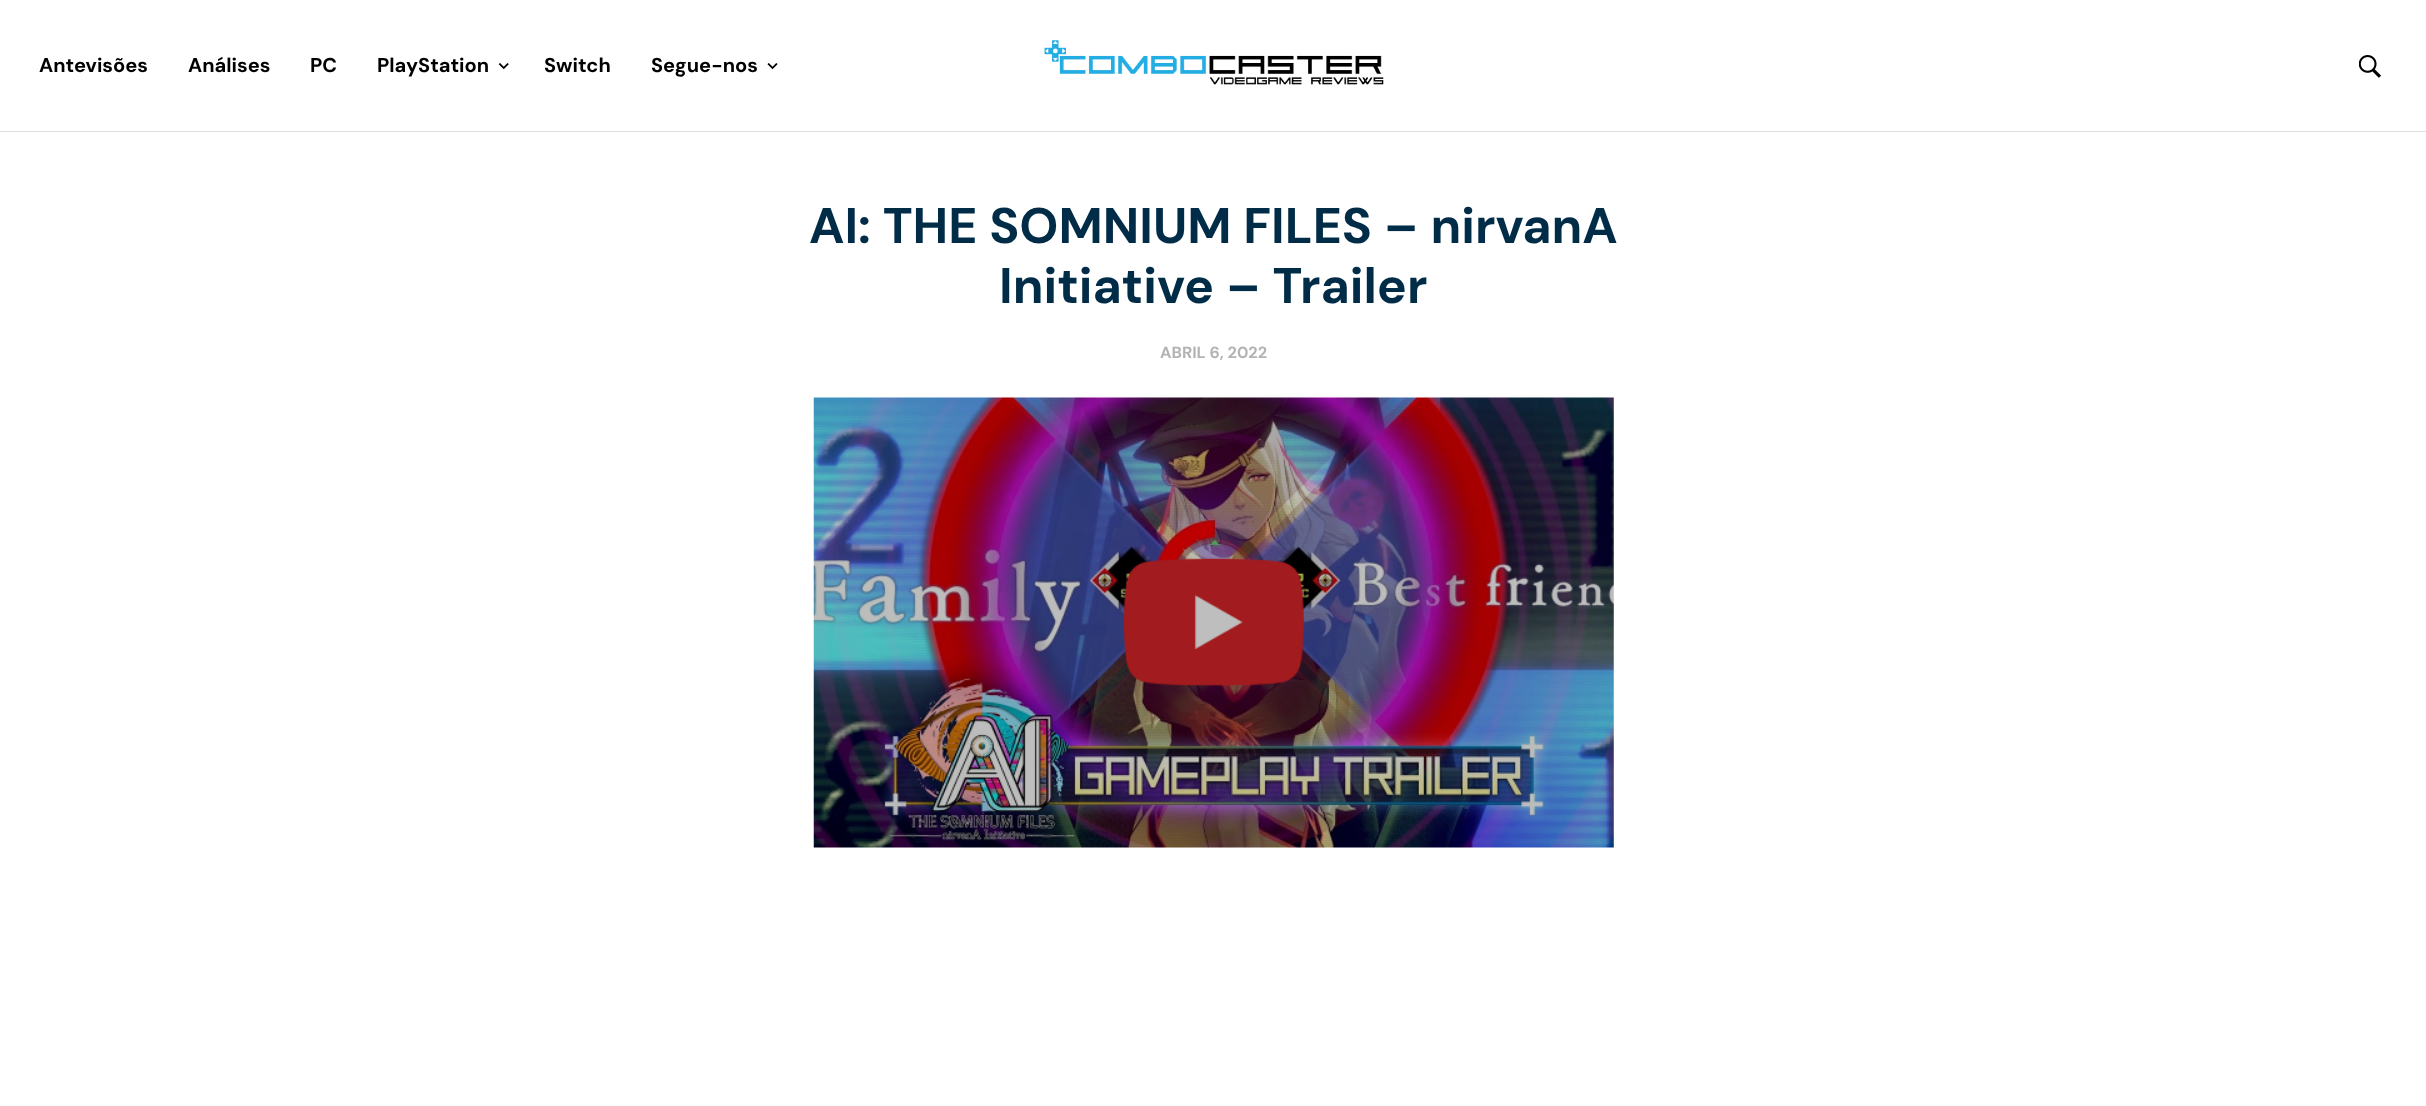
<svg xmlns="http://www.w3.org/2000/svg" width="2426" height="1106">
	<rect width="100%" height="100%" fill="#FFFFFF" />
	<rect x="0" y="131" width="2426" height="1" fill="#DEDEDE" />
	<g font-family="DM Sans" font-size="20" font-weight="700" fill="#000000">
		<text x="39" y="72">Antevisões</text>
		<text x="188" y="72">Análises</text>
		<text x="310" y="72">PC</text>
		<text x="377" y="72">PlayStation</text>
	</g>
	<image x="498" y="63" width="11" height="7" href="assets/img1.png" />
	<g font-family="DM Sans" font-size="20" font-weight="700" fill="#000000">
		<text x="544" y="72">Switch</text>
		<text x="651" y="72">Segue-nos</text>
	</g>
	<image x="767" y="63" width="11" height="7" href="assets/img2.png" />
	<image x="1044" y="40" width="340" height="45" href="assets/img3.png" />
	<image x="2359" y="55" width="22" height="23" href="assets/img4.png" />
	<g font-family="DM Sans" font-size="50" font-weight="700" fill="#002C47">
		<text x="809" y="243">AI: THE SOMNIUM FILES – nirvanA</text>
		<text x="999" y="303">Initiative – Trailer</text>
	</g>
	<text x="1160" y="358" font-family="DM Sans" font-size="16.25" font-weight="700" fill="#B3B3B3">ABRIL 6, 2022</text>
	<image x="813" y="397" width="801" height="451" href="assets/img5.png" />
</svg>
